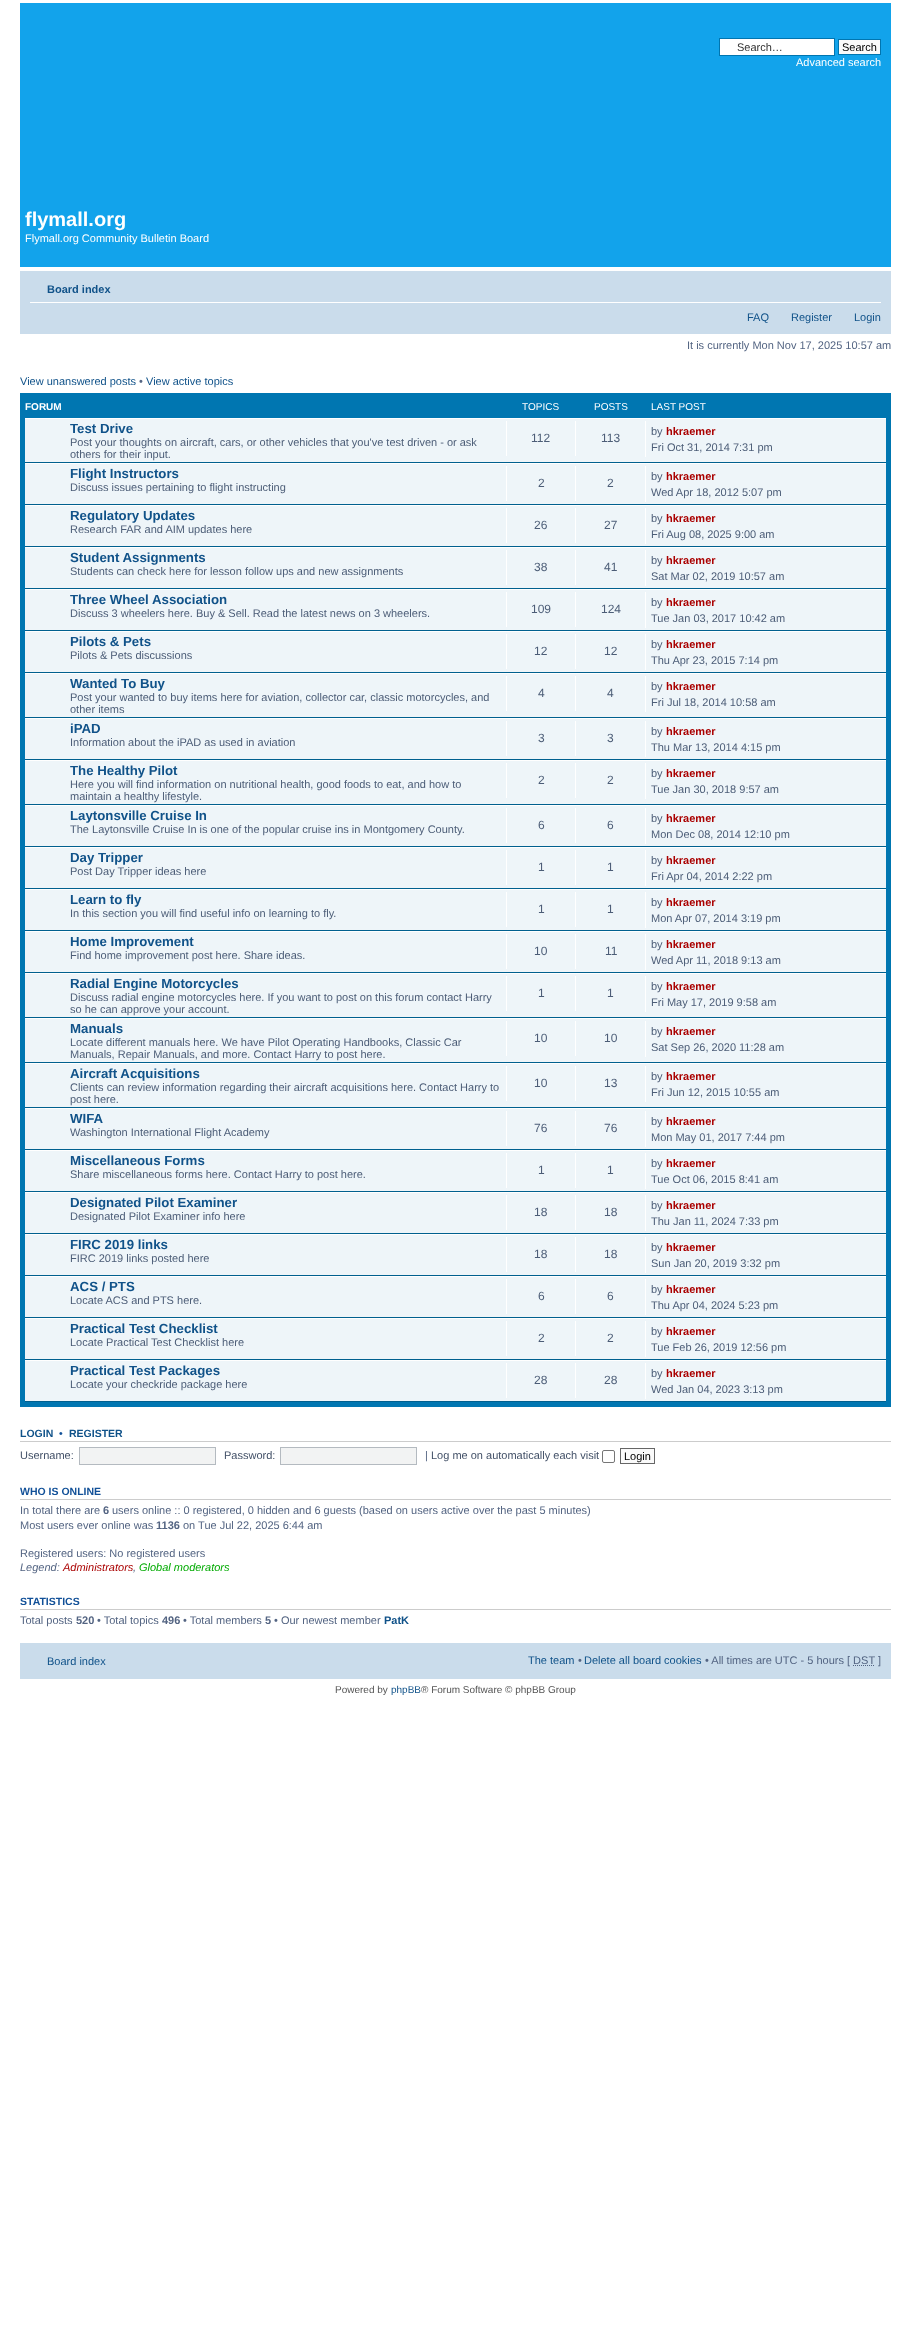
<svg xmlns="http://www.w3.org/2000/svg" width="911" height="2330">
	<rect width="100%" height="100%" fill="#FFFFFF" />
	<rect x="20" y="3" width="871" height="264" fill="#12A3EB" />
	<rect x="719.5" y="38.5" width="115" height="17" fill="#FFFFFF" stroke="#0075B0" />
	<text x="737" y="51" font-family="Liberation Sans" font-size="11" fill="#333333">Search…</text>
	<rect x="838.5" y="39.5" width="42" height="15" fill="#FAFAFA" stroke="#0075B0" />
	<text x="842" y="51" font-family="Liberation Sans" font-size="11" fill="#000000">Search</text>
	<text x="796" y="66" font-family="Liberation Sans" font-size="11" fill="#FFFFFF">Advanced search</text>
	<text x="25" y="226" font-family="Liberation Sans" font-size="20" font-weight="700" fill="#FFFFFF">flymall.org</text>
	<text x="25" y="242" font-family="Liberation Sans" font-size="11" fill="#FFFFFF">Flymall.org Community Bulletin Board</text>
	<rect x="20" y="271" width="871" height="63" fill="#CADCEB" />
	<rect x="30" y="302" width="851" height="1" fill="#FFFFFF" />
	<text x="47" y="293" font-family="Liberation Sans" font-size="11" font-weight="700" fill="#105289">Board index</text>
	<g font-family="Liberation Sans" font-size="11" fill="#105289">
		<text x="747" y="321">FAQ</text>
		<text x="791" y="321">Register</text>
		<text x="854" y="321">Login</text>
	</g>
	<text x="687" y="349" font-family="Liberation Sans" font-size="11" fill="#536482">It is currently Mon Nov 17, 2025 10:57 am</text>
	<text x="20" y="385" font-family="Liberation Sans" font-size="11" fill="#105289">View unanswered posts</text>
	<text x="139" y="385" font-family="Liberation Sans" font-size="11" fill="#536482">•</text>
	<text x="146" y="385" font-family="Liberation Sans" font-size="11" fill="#105289">View active topics</text>
	<rect x="20" y="393" width="871" height="1014" fill="#0076B1" />
	<text x="25" y="410" font-family="Liberation Sans" font-size="10" font-weight="700" fill="#FFFFFF">FORUM</text>
	<g font-family="Liberation Sans" font-size="10" fill="#FFFFFF">
		<text x="522" y="410">TOPICS</text>
		<text x="594" y="410">POSTS</text>
		<text x="651" y="410">LAST POST</text>
	</g>
	<rect x="25" y="419" width="861" height="982" fill="#EEF5F9" />
	<rect x="25" y="418" width="861" height="1" fill="#FFFFFF" />
	<rect x="25" y="462" width="861" height="1" fill="#00608F" />
	<text x="70" y="433" font-family="Liberation Sans" font-size="13.25" font-weight="700" fill="#105289">Test Drive</text>
	<g font-family="Liberation Sans" font-size="11" fill="#4C5D77">
		<text x="70" y="446">Post your thoughts on aircraft, cars, or other vehicles that you've test driven - or ask</text>
		<text x="70" y="458">others for their input.</text>
	</g>
	<rect x="506" y="421" width="1" height="35" fill="#FFFFFF" />
	<text x="531" y="442" font-family="Liberation Sans" font-size="12" fill="#4C5D77">112</text>
	<rect x="575" y="421" width="1" height="35" fill="#FFFFFF" />
	<text x="601" y="442" font-family="Liberation Sans" font-size="12" fill="#4C5D77">113</text>
	<rect x="645" y="421" width="1" height="36" fill="#FFFFFF" />
	<text x="651" y="435" font-family="Liberation Sans" font-size="11" fill="#4C5D77">by</text>
	<text x="666" y="435" font-family="Liberation Sans" font-size="11" font-weight="700" fill="#AA0000">hkraemer</text>
	<text x="651" y="451" font-family="Liberation Sans" font-size="11" fill="#4C5D77">Fri Oct 31, 2014 7:31 pm</text>
	<rect x="25" y="463" width="861" height="1" fill="#FFFFFF" />
	<rect x="25" y="504" width="861" height="1" fill="#00608F" />
	<text x="70" y="478" font-family="Liberation Sans" font-size="13.25" font-weight="700" fill="#105289">Flight Instructors</text>
	<text x="70" y="491" font-family="Liberation Sans" font-size="11" fill="#4C5D77">Discuss issues pertaining to flight instructing</text>
	<rect x="506" y="466" width="1" height="35" fill="#FFFFFF" />
	<text x="538" y="487" font-family="Liberation Sans" font-size="12" fill="#4C5D77">2</text>
	<rect x="575" y="466" width="1" height="35" fill="#FFFFFF" />
	<text x="607" y="487" font-family="Liberation Sans" font-size="12" fill="#4C5D77">2</text>
	<rect x="645" y="466" width="1" height="36" fill="#FFFFFF" />
	<text x="651" y="480" font-family="Liberation Sans" font-size="11" fill="#4C5D77">by</text>
	<text x="666" y="480" font-family="Liberation Sans" font-size="11" font-weight="700" fill="#AA0000">hkraemer</text>
	<text x="651" y="496" font-family="Liberation Sans" font-size="11" fill="#4C5D77">Wed Apr 18, 2012 5:07 pm</text>
	<rect x="25" y="505" width="861" height="1" fill="#FFFFFF" />
	<rect x="25" y="546" width="861" height="1" fill="#00608F" />
	<text x="70" y="520" font-family="Liberation Sans" font-size="13.25" font-weight="700" fill="#105289">Regulatory Updates</text>
	<text x="70" y="533" font-family="Liberation Sans" font-size="11" fill="#4C5D77">Research FAR and AIM updates here</text>
	<rect x="506" y="508" width="1" height="35" fill="#FFFFFF" />
	<text x="534" y="529" font-family="Liberation Sans" font-size="12" fill="#4C5D77">26</text>
	<rect x="575" y="508" width="1" height="35" fill="#FFFFFF" />
	<text x="604" y="529" font-family="Liberation Sans" font-size="12" fill="#4C5D77">27</text>
	<rect x="645" y="508" width="1" height="36" fill="#FFFFFF" />
	<text x="651" y="522" font-family="Liberation Sans" font-size="11" fill="#4C5D77">by</text>
	<text x="666" y="522" font-family="Liberation Sans" font-size="11" font-weight="700" fill="#AA0000">hkraemer</text>
	<text x="651" y="538" font-family="Liberation Sans" font-size="11" fill="#4C5D77">Fri Aug 08, 2025 9:00 am</text>
	<rect x="25" y="547" width="861" height="1" fill="#FFFFFF" />
	<rect x="25" y="588" width="861" height="1" fill="#00608F" />
	<text x="70" y="562" font-family="Liberation Sans" font-size="13.25" font-weight="700" fill="#105289">Student Assignments</text>
	<text x="70" y="575" font-family="Liberation Sans" font-size="11" fill="#4C5D77">Students can check here for lesson follow ups and new assignments</text>
	<rect x="506" y="550" width="1" height="35" fill="#FFFFFF" />
	<text x="534" y="571" font-family="Liberation Sans" font-size="12" fill="#4C5D77">38</text>
	<rect x="575" y="550" width="1" height="35" fill="#FFFFFF" />
	<text x="604" y="571" font-family="Liberation Sans" font-size="12" fill="#4C5D77">41</text>
	<rect x="645" y="550" width="1" height="36" fill="#FFFFFF" />
	<text x="651" y="564" font-family="Liberation Sans" font-size="11" fill="#4C5D77">by</text>
	<text x="666" y="564" font-family="Liberation Sans" font-size="11" font-weight="700" fill="#AA0000">hkraemer</text>
	<text x="651" y="580" font-family="Liberation Sans" font-size="11" fill="#4C5D77">Sat Mar 02, 2019 10:57 am</text>
	<rect x="25" y="589" width="861" height="1" fill="#FFFFFF" />
	<rect x="25" y="630" width="861" height="1" fill="#00608F" />
	<text x="70" y="604" font-family="Liberation Sans" font-size="13.25" font-weight="700" fill="#105289">Three Wheel Association</text>
	<text x="70" y="617" font-family="Liberation Sans" font-size="11" fill="#4C5D77">Discuss 3 wheelers here. Buy &amp; Sell. Read the latest news on 3 wheelers.</text>
	<rect x="506" y="592" width="1" height="35" fill="#FFFFFF" />
	<text x="531" y="613" font-family="Liberation Sans" font-size="12" fill="#4C5D77">109</text>
	<rect x="575" y="592" width="1" height="35" fill="#FFFFFF" />
	<text x="601" y="613" font-family="Liberation Sans" font-size="12" fill="#4C5D77">124</text>
	<rect x="645" y="592" width="1" height="36" fill="#FFFFFF" />
	<text x="651" y="606" font-family="Liberation Sans" font-size="11" fill="#4C5D77">by</text>
	<text x="666" y="606" font-family="Liberation Sans" font-size="11" font-weight="700" fill="#AA0000">hkraemer</text>
	<text x="651" y="622" font-family="Liberation Sans" font-size="11" fill="#4C5D77">Tue Jan 03, 2017 10:42 am</text>
	<rect x="25" y="631" width="861" height="1" fill="#FFFFFF" />
	<rect x="25" y="672" width="861" height="1" fill="#00608F" />
	<text x="70" y="646" font-family="Liberation Sans" font-size="13.25" font-weight="700" fill="#105289">Pilots &amp; Pets</text>
	<text x="70" y="659" font-family="Liberation Sans" font-size="11" fill="#4C5D77">Pilots &amp; Pets discussions</text>
	<rect x="506" y="634" width="1" height="35" fill="#FFFFFF" />
	<text x="534" y="655" font-family="Liberation Sans" font-size="12" fill="#4C5D77">12</text>
	<rect x="575" y="634" width="1" height="35" fill="#FFFFFF" />
	<text x="604" y="655" font-family="Liberation Sans" font-size="12" fill="#4C5D77">12</text>
	<rect x="645" y="634" width="1" height="36" fill="#FFFFFF" />
	<text x="651" y="648" font-family="Liberation Sans" font-size="11" fill="#4C5D77">by</text>
	<text x="666" y="648" font-family="Liberation Sans" font-size="11" font-weight="700" fill="#AA0000">hkraemer</text>
	<text x="651" y="664" font-family="Liberation Sans" font-size="11" fill="#4C5D77">Thu Apr 23, 2015 7:14 pm</text>
	<rect x="25" y="673" width="861" height="1" fill="#FFFFFF" />
	<rect x="25" y="717" width="861" height="1" fill="#00608F" />
	<text x="70" y="688" font-family="Liberation Sans" font-size="13.25" font-weight="700" fill="#105289">Wanted To Buy</text>
	<g font-family="Liberation Sans" font-size="11" fill="#4C5D77">
		<text x="70" y="701">Post your wanted to buy items here for aviation, collector car, classic motorcycles, and</text>
		<text x="70" y="713">other items</text>
	</g>
	<rect x="506" y="676" width="1" height="35" fill="#FFFFFF" />
	<text x="538" y="697" font-family="Liberation Sans" font-size="12" fill="#4C5D77">4</text>
	<rect x="575" y="676" width="1" height="35" fill="#FFFFFF" />
	<text x="607" y="697" font-family="Liberation Sans" font-size="12" fill="#4C5D77">4</text>
	<rect x="645" y="676" width="1" height="36" fill="#FFFFFF" />
	<text x="651" y="690" font-family="Liberation Sans" font-size="11" fill="#4C5D77">by</text>
	<text x="666" y="690" font-family="Liberation Sans" font-size="11" font-weight="700" fill="#AA0000">hkraemer</text>
	<text x="651" y="706" font-family="Liberation Sans" font-size="11" fill="#4C5D77">Fri Jul 18, 2014 10:58 am</text>
	<rect x="25" y="718" width="861" height="1" fill="#FFFFFF" />
	<rect x="25" y="759" width="861" height="1" fill="#00608F" />
	<text x="70" y="733" font-family="Liberation Sans" font-size="13.25" font-weight="700" fill="#105289">iPAD</text>
	<text x="70" y="746" font-family="Liberation Sans" font-size="11" fill="#4C5D77">Information about the iPAD as used in aviation</text>
	<rect x="506" y="721" width="1" height="35" fill="#FFFFFF" />
	<text x="538" y="742" font-family="Liberation Sans" font-size="12" fill="#4C5D77">3</text>
	<rect x="575" y="721" width="1" height="35" fill="#FFFFFF" />
	<text x="607" y="742" font-family="Liberation Sans" font-size="12" fill="#4C5D77">3</text>
	<rect x="645" y="721" width="1" height="36" fill="#FFFFFF" />
	<text x="651" y="735" font-family="Liberation Sans" font-size="11" fill="#4C5D77">by</text>
	<text x="666" y="735" font-family="Liberation Sans" font-size="11" font-weight="700" fill="#AA0000">hkraemer</text>
	<text x="651" y="751" font-family="Liberation Sans" font-size="11" fill="#4C5D77">Thu Mar 13, 2014 4:15 pm</text>
	<rect x="25" y="760" width="861" height="1" fill="#FFFFFF" />
	<rect x="25" y="804" width="861" height="1" fill="#00608F" />
	<text x="70" y="775" font-family="Liberation Sans" font-size="13.25" font-weight="700" fill="#105289">The Healthy Pilot</text>
	<g font-family="Liberation Sans" font-size="11" fill="#4C5D77">
		<text x="70" y="788">Here you will find information on nutritional health, good foods to eat, and how to</text>
		<text x="70" y="800">maintain a healthy lifestyle.</text>
	</g>
	<rect x="506" y="763" width="1" height="35" fill="#FFFFFF" />
	<text x="538" y="784" font-family="Liberation Sans" font-size="12" fill="#4C5D77">2</text>
	<rect x="575" y="763" width="1" height="35" fill="#FFFFFF" />
	<text x="607" y="784" font-family="Liberation Sans" font-size="12" fill="#4C5D77">2</text>
	<rect x="645" y="763" width="1" height="36" fill="#FFFFFF" />
	<text x="651" y="777" font-family="Liberation Sans" font-size="11" fill="#4C5D77">by</text>
	<text x="666" y="777" font-family="Liberation Sans" font-size="11" font-weight="700" fill="#AA0000">hkraemer</text>
	<text x="651" y="793" font-family="Liberation Sans" font-size="11" fill="#4C5D77">Tue Jan 30, 2018 9:57 am</text>
	<rect x="25" y="805" width="861" height="1" fill="#FFFFFF" />
	<rect x="25" y="846" width="861" height="1" fill="#00608F" />
	<text x="70" y="820" font-family="Liberation Sans" font-size="13.25" font-weight="700" fill="#105289">Laytonsville Cruise In</text>
	<text x="70" y="833" font-family="Liberation Sans" font-size="11" fill="#4C5D77">The Laytonsville Cruise In is one of the popular cruise ins in Montgomery County.</text>
	<rect x="506" y="808" width="1" height="35" fill="#FFFFFF" />
	<text x="538" y="829" font-family="Liberation Sans" font-size="12" fill="#4C5D77">6</text>
	<rect x="575" y="808" width="1" height="35" fill="#FFFFFF" />
	<text x="607" y="829" font-family="Liberation Sans" font-size="12" fill="#4C5D77">6</text>
	<rect x="645" y="808" width="1" height="36" fill="#FFFFFF" />
	<text x="651" y="822" font-family="Liberation Sans" font-size="11" fill="#4C5D77">by</text>
	<text x="666" y="822" font-family="Liberation Sans" font-size="11" font-weight="700" fill="#AA0000">hkraemer</text>
	<text x="651" y="838" font-family="Liberation Sans" font-size="11" fill="#4C5D77">Mon Dec 08, 2014 12:10 pm</text>
	<rect x="25" y="847" width="861" height="1" fill="#FFFFFF" />
	<rect x="25" y="888" width="861" height="1" fill="#00608F" />
	<text x="70" y="862" font-family="Liberation Sans" font-size="13.25" font-weight="700" fill="#105289">Day Tripper</text>
	<text x="70" y="875" font-family="Liberation Sans" font-size="11" fill="#4C5D77">Post Day Tripper ideas here</text>
	<rect x="506" y="850" width="1" height="35" fill="#FFFFFF" />
	<text x="538" y="871" font-family="Liberation Sans" font-size="12" fill="#4C5D77">1</text>
	<rect x="575" y="850" width="1" height="35" fill="#FFFFFF" />
	<text x="607" y="871" font-family="Liberation Sans" font-size="12" fill="#4C5D77">1</text>
	<rect x="645" y="850" width="1" height="36" fill="#FFFFFF" />
	<text x="651" y="864" font-family="Liberation Sans" font-size="11" fill="#4C5D77">by</text>
	<text x="666" y="864" font-family="Liberation Sans" font-size="11" font-weight="700" fill="#AA0000">hkraemer</text>
	<text x="651" y="880" font-family="Liberation Sans" font-size="11" fill="#4C5D77">Fri Apr 04, 2014 2:22 pm</text>
	<rect x="25" y="889" width="861" height="1" fill="#FFFFFF" />
	<rect x="25" y="930" width="861" height="1" fill="#00608F" />
	<text x="70" y="904" font-family="Liberation Sans" font-size="13.25" font-weight="700" fill="#105289">Learn to fly</text>
	<text x="70" y="917" font-family="Liberation Sans" font-size="11" fill="#4C5D77">In this section you will find useful info on learning to fly.</text>
	<rect x="506" y="892" width="1" height="35" fill="#FFFFFF" />
	<text x="538" y="913" font-family="Liberation Sans" font-size="12" fill="#4C5D77">1</text>
	<rect x="575" y="892" width="1" height="35" fill="#FFFFFF" />
	<text x="607" y="913" font-family="Liberation Sans" font-size="12" fill="#4C5D77">1</text>
	<rect x="645" y="892" width="1" height="36" fill="#FFFFFF" />
	<text x="651" y="906" font-family="Liberation Sans" font-size="11" fill="#4C5D77">by</text>
	<text x="666" y="906" font-family="Liberation Sans" font-size="11" font-weight="700" fill="#AA0000">hkraemer</text>
	<text x="651" y="922" font-family="Liberation Sans" font-size="11" fill="#4C5D77">Mon Apr 07, 2014 3:19 pm</text>
	<rect x="25" y="931" width="861" height="1" fill="#FFFFFF" />
	<rect x="25" y="972" width="861" height="1" fill="#00608F" />
	<text x="70" y="946" font-family="Liberation Sans" font-size="13.25" font-weight="700" fill="#105289">Home Improvement</text>
	<text x="70" y="959" font-family="Liberation Sans" font-size="11" fill="#4C5D77">Find home improvement post here. Share ideas.</text>
	<rect x="506" y="934" width="1" height="35" fill="#FFFFFF" />
	<text x="534" y="955" font-family="Liberation Sans" font-size="12" fill="#4C5D77">10</text>
	<rect x="575" y="934" width="1" height="35" fill="#FFFFFF" />
	<text x="605" y="955" font-family="Liberation Sans" font-size="12" fill="#4C5D77">11</text>
	<rect x="645" y="934" width="1" height="36" fill="#FFFFFF" />
	<text x="651" y="948" font-family="Liberation Sans" font-size="11" fill="#4C5D77">by</text>
	<text x="666" y="948" font-family="Liberation Sans" font-size="11" font-weight="700" fill="#AA0000">hkraemer</text>
	<text x="651" y="964" font-family="Liberation Sans" font-size="11" fill="#4C5D77">Wed Apr 11, 2018 9:13 am</text>
	<rect x="25" y="973" width="861" height="1" fill="#FFFFFF" />
	<rect x="25" y="1017" width="861" height="1" fill="#00608F" />
	<text x="70" y="988" font-family="Liberation Sans" font-size="13.25" font-weight="700" fill="#105289">Radial Engine Motorcycles</text>
	<g font-family="Liberation Sans" font-size="11" fill="#4C5D77">
		<text x="70" y="1001">Discuss radial engine motorcycles here. If you want to post on this forum contact Harry</text>
		<text x="70" y="1013">so he can approve your account.</text>
	</g>
	<rect x="506" y="976" width="1" height="35" fill="#FFFFFF" />
	<text x="538" y="997" font-family="Liberation Sans" font-size="12" fill="#4C5D77">1</text>
	<rect x="575" y="976" width="1" height="35" fill="#FFFFFF" />
	<text x="607" y="997" font-family="Liberation Sans" font-size="12" fill="#4C5D77">1</text>
	<rect x="645" y="976" width="1" height="36" fill="#FFFFFF" />
	<text x="651" y="990" font-family="Liberation Sans" font-size="11" fill="#4C5D77">by</text>
	<text x="666" y="990" font-family="Liberation Sans" font-size="11" font-weight="700" fill="#AA0000">hkraemer</text>
	<text x="651" y="1006" font-family="Liberation Sans" font-size="11" fill="#4C5D77">Fri May 17, 2019 9:58 am</text>
	<rect x="25" y="1018" width="861" height="1" fill="#FFFFFF" />
	<rect x="25" y="1062" width="861" height="1" fill="#00608F" />
	<text x="70" y="1033" font-family="Liberation Sans" font-size="13.25" font-weight="700" fill="#105289">Manuals</text>
	<g font-family="Liberation Sans" font-size="11" fill="#4C5D77">
		<text x="70" y="1046">Locate different manuals here. We have Pilot Operating Handbooks, Classic Car</text>
		<text x="70" y="1058">Manuals, Repair Manuals, and more. Contact Harry to post here.</text>
	</g>
	<rect x="506" y="1021" width="1" height="35" fill="#FFFFFF" />
	<text x="534" y="1042" font-family="Liberation Sans" font-size="12" fill="#4C5D77">10</text>
	<rect x="575" y="1021" width="1" height="35" fill="#FFFFFF" />
	<text x="604" y="1042" font-family="Liberation Sans" font-size="12" fill="#4C5D77">10</text>
	<rect x="645" y="1021" width="1" height="36" fill="#FFFFFF" />
	<text x="651" y="1035" font-family="Liberation Sans" font-size="11" fill="#4C5D77">by</text>
	<text x="666" y="1035" font-family="Liberation Sans" font-size="11" font-weight="700" fill="#AA0000">hkraemer</text>
	<text x="651" y="1051" font-family="Liberation Sans" font-size="11" fill="#4C5D77">Sat Sep 26, 2020 11:28 am</text>
	<rect x="25" y="1063" width="861" height="1" fill="#FFFFFF" />
	<rect x="25" y="1107" width="861" height="1" fill="#00608F" />
	<text x="70" y="1078" font-family="Liberation Sans" font-size="13.25" font-weight="700" fill="#105289">Aircraft Acquisitions</text>
	<g font-family="Liberation Sans" font-size="11" fill="#4C5D77">
		<text x="70" y="1091">Clients can review information regarding their aircraft acquisitions here. Contact Harry to</text>
		<text x="70" y="1103">post here.</text>
	</g>
	<rect x="506" y="1066" width="1" height="35" fill="#FFFFFF" />
	<text x="534" y="1087" font-family="Liberation Sans" font-size="12" fill="#4C5D77">10</text>
	<rect x="575" y="1066" width="1" height="35" fill="#FFFFFF" />
	<text x="604" y="1087" font-family="Liberation Sans" font-size="12" fill="#4C5D77">13</text>
	<rect x="645" y="1066" width="1" height="36" fill="#FFFFFF" />
	<text x="651" y="1080" font-family="Liberation Sans" font-size="11" fill="#4C5D77">by</text>
	<text x="666" y="1080" font-family="Liberation Sans" font-size="11" font-weight="700" fill="#AA0000">hkraemer</text>
	<text x="651" y="1096" font-family="Liberation Sans" font-size="11" fill="#4C5D77">Fri Jun 12, 2015 10:55 am</text>
	<rect x="25" y="1108" width="861" height="1" fill="#FFFFFF" />
	<rect x="25" y="1149" width="861" height="1" fill="#00608F" />
	<text x="70" y="1123" font-family="Liberation Sans" font-size="13.25" font-weight="700" fill="#105289">WIFA</text>
	<text x="70" y="1136" font-family="Liberation Sans" font-size="11" fill="#4C5D77">Washington International Flight Academy</text>
	<rect x="506" y="1111" width="1" height="35" fill="#FFFFFF" />
	<text x="534" y="1132" font-family="Liberation Sans" font-size="12" fill="#4C5D77">76</text>
	<rect x="575" y="1111" width="1" height="35" fill="#FFFFFF" />
	<text x="604" y="1132" font-family="Liberation Sans" font-size="12" fill="#4C5D77">76</text>
	<rect x="645" y="1111" width="1" height="36" fill="#FFFFFF" />
	<text x="651" y="1125" font-family="Liberation Sans" font-size="11" fill="#4C5D77">by</text>
	<text x="666" y="1125" font-family="Liberation Sans" font-size="11" font-weight="700" fill="#AA0000">hkraemer</text>
	<text x="651" y="1141" font-family="Liberation Sans" font-size="11" fill="#4C5D77">Mon May 01, 2017 7:44 pm</text>
	<rect x="25" y="1150" width="861" height="1" fill="#FFFFFF" />
	<rect x="25" y="1191" width="861" height="1" fill="#00608F" />
	<text x="70" y="1165" font-family="Liberation Sans" font-size="13.25" font-weight="700" fill="#105289">Miscellaneous Forms</text>
	<text x="70" y="1178" font-family="Liberation Sans" font-size="11" fill="#4C5D77">Share miscellaneous forms here. Contact Harry to post here.</text>
	<rect x="506" y="1153" width="1" height="35" fill="#FFFFFF" />
	<text x="538" y="1174" font-family="Liberation Sans" font-size="12" fill="#4C5D77">1</text>
	<rect x="575" y="1153" width="1" height="35" fill="#FFFFFF" />
	<text x="607" y="1174" font-family="Liberation Sans" font-size="12" fill="#4C5D77">1</text>
	<rect x="645" y="1153" width="1" height="36" fill="#FFFFFF" />
	<text x="651" y="1167" font-family="Liberation Sans" font-size="11" fill="#4C5D77">by</text>
	<text x="666" y="1167" font-family="Liberation Sans" font-size="11" font-weight="700" fill="#AA0000">hkraemer</text>
	<text x="651" y="1183" font-family="Liberation Sans" font-size="11" fill="#4C5D77">Tue Oct 06, 2015 8:41 am</text>
	<rect x="25" y="1192" width="861" height="1" fill="#FFFFFF" />
	<rect x="25" y="1233" width="861" height="1" fill="#00608F" />
	<text x="70" y="1207" font-family="Liberation Sans" font-size="13.25" font-weight="700" fill="#105289">Designated Pilot Examiner</text>
	<text x="70" y="1220" font-family="Liberation Sans" font-size="11" fill="#4C5D77">Designated Pilot Examiner info here</text>
	<rect x="506" y="1195" width="1" height="35" fill="#FFFFFF" />
	<text x="534" y="1216" font-family="Liberation Sans" font-size="12" fill="#4C5D77">18</text>
	<rect x="575" y="1195" width="1" height="35" fill="#FFFFFF" />
	<text x="604" y="1216" font-family="Liberation Sans" font-size="12" fill="#4C5D77">18</text>
	<rect x="645" y="1195" width="1" height="36" fill="#FFFFFF" />
	<text x="651" y="1209" font-family="Liberation Sans" font-size="11" fill="#4C5D77">by</text>
	<text x="666" y="1209" font-family="Liberation Sans" font-size="11" font-weight="700" fill="#AA0000">hkraemer</text>
	<text x="651" y="1225" font-family="Liberation Sans" font-size="11" fill="#4C5D77">Thu Jan 11, 2024 7:33 pm</text>
	<rect x="25" y="1234" width="861" height="1" fill="#FFFFFF" />
	<rect x="25" y="1275" width="861" height="1" fill="#00608F" />
	<text x="70" y="1249" font-family="Liberation Sans" font-size="13.25" font-weight="700" fill="#105289">FIRC 2019 links</text>
	<text x="70" y="1262" font-family="Liberation Sans" font-size="11" fill="#4C5D77">FIRC 2019 links posted here</text>
	<rect x="506" y="1237" width="1" height="35" fill="#FFFFFF" />
	<text x="534" y="1258" font-family="Liberation Sans" font-size="12" fill="#4C5D77">18</text>
	<rect x="575" y="1237" width="1" height="35" fill="#FFFFFF" />
	<text x="604" y="1258" font-family="Liberation Sans" font-size="12" fill="#4C5D77">18</text>
	<rect x="645" y="1237" width="1" height="36" fill="#FFFFFF" />
	<text x="651" y="1251" font-family="Liberation Sans" font-size="11" fill="#4C5D77">by</text>
	<text x="666" y="1251" font-family="Liberation Sans" font-size="11" font-weight="700" fill="#AA0000">hkraemer</text>
	<text x="651" y="1267" font-family="Liberation Sans" font-size="11" fill="#4C5D77">Sun Jan 20, 2019 3:32 pm</text>
	<rect x="25" y="1276" width="861" height="1" fill="#FFFFFF" />
	<rect x="25" y="1317" width="861" height="1" fill="#00608F" />
	<text x="70" y="1291" font-family="Liberation Sans" font-size="13.25" font-weight="700" fill="#105289">ACS / PTS</text>
	<text x="70" y="1304" font-family="Liberation Sans" font-size="11" fill="#4C5D77">Locate ACS and PTS here.</text>
	<rect x="506" y="1279" width="1" height="35" fill="#FFFFFF" />
	<text x="538" y="1300" font-family="Liberation Sans" font-size="12" fill="#4C5D77">6</text>
	<rect x="575" y="1279" width="1" height="35" fill="#FFFFFF" />
	<text x="607" y="1300" font-family="Liberation Sans" font-size="12" fill="#4C5D77">6</text>
	<rect x="645" y="1279" width="1" height="36" fill="#FFFFFF" />
	<text x="651" y="1293" font-family="Liberation Sans" font-size="11" fill="#4C5D77">by</text>
	<text x="666" y="1293" font-family="Liberation Sans" font-size="11" font-weight="700" fill="#AA0000">hkraemer</text>
	<text x="651" y="1309" font-family="Liberation Sans" font-size="11" fill="#4C5D77">Thu Apr 04, 2024 5:23 pm</text>
	<rect x="25" y="1318" width="861" height="1" fill="#FFFFFF" />
	<rect x="25" y="1359" width="861" height="1" fill="#00608F" />
	<text x="70" y="1333" font-family="Liberation Sans" font-size="13.25" font-weight="700" fill="#105289">Practical Test Checklist</text>
	<text x="70" y="1346" font-family="Liberation Sans" font-size="11" fill="#4C5D77">Locate Practical Test Checklist here</text>
	<rect x="506" y="1321" width="1" height="35" fill="#FFFFFF" />
	<text x="538" y="1342" font-family="Liberation Sans" font-size="12" fill="#4C5D77">2</text>
	<rect x="575" y="1321" width="1" height="35" fill="#FFFFFF" />
	<text x="607" y="1342" font-family="Liberation Sans" font-size="12" fill="#4C5D77">2</text>
	<rect x="645" y="1321" width="1" height="36" fill="#FFFFFF" />
	<text x="651" y="1335" font-family="Liberation Sans" font-size="11" fill="#4C5D77">by</text>
	<text x="666" y="1335" font-family="Liberation Sans" font-size="11" font-weight="700" fill="#AA0000">hkraemer</text>
	<text x="651" y="1351" font-family="Liberation Sans" font-size="11" fill="#4C5D77">Tue Feb 26, 2019 12:56 pm</text>
	<rect x="25" y="1360" width="861" height="1" fill="#FFFFFF" />
	<rect x="25" y="1401" width="861" height="1" fill="#00608F" />
	<text x="70" y="1375" font-family="Liberation Sans" font-size="13.25" font-weight="700" fill="#105289">Practical Test Packages</text>
	<text x="70" y="1388" font-family="Liberation Sans" font-size="11" fill="#4C5D77">Locate your checkride package here</text>
	<rect x="506" y="1363" width="1" height="35" fill="#FFFFFF" />
	<text x="534" y="1384" font-family="Liberation Sans" font-size="12" fill="#4C5D77">28</text>
	<rect x="575" y="1363" width="1" height="35" fill="#FFFFFF" />
	<text x="604" y="1384" font-family="Liberation Sans" font-size="12" fill="#4C5D77">28</text>
	<rect x="645" y="1363" width="1" height="36" fill="#FFFFFF" />
	<text x="651" y="1377" font-family="Liberation Sans" font-size="11" fill="#4C5D77">by</text>
	<text x="666" y="1377" font-family="Liberation Sans" font-size="11" font-weight="700" fill="#AA0000">hkraemer</text>
	<text x="651" y="1393" font-family="Liberation Sans" font-size="11" fill="#4C5D77">Wed Jan 04, 2023 3:13 pm</text>
	<rect x="20" y="1441" width="871" height="1" fill="#CCCCCC" />
	<text x="20" y="1437" font-family="Liberation Sans" font-size="10.5" font-weight="700" fill="#105289">LOGIN</text>
	<text x="59" y="1437" font-family="Liberation Sans" font-size="10.5" font-weight="700" fill="#115098">•</text>
	<text x="69" y="1437" font-family="Liberation Sans" font-size="10.5" font-weight="700" fill="#105289">REGISTER</text>
	<text x="20" y="1459" font-family="Liberation Sans" font-size="11" fill="#425067">Username:</text>
	<rect x="79.5" y="1447.5" width="136" height="17" fill="#F2F3F3" stroke="#B4BAC0" />
	<text x="224" y="1459" font-family="Liberation Sans" font-size="11" fill="#425067">Password:</text>
	<rect x="280.5" y="1447.5" width="136" height="17" fill="#F2F3F3" stroke="#B4BAC0" />
	<text x="425" y="1459" font-family="Liberation Sans" font-size="11" fill="#536482">|</text>
	<text x="431" y="1459" font-family="Liberation Sans" font-size="11" fill="#425067">Log me on automatically each visit</text>
	<rect x="602.5" y="1450.5" width="12" height="12" rx="1.5" fill="none" stroke="#767676" />
	<rect x="620.5" y="1448.5" width="34" height="15" fill="#FAFAFA" stroke="#666666" />
	<text x="624" y="1460" font-family="Liberation Sans" font-size="11" fill="#000000">Login</text>
	<rect x="20" y="1499" width="871" height="1" fill="#CCCCCC" />
	<text x="20" y="1495" font-family="Liberation Sans" font-size="10.5" font-weight="700" fill="#115098">WHO IS ONLINE</text>
	<text x="20" y="1514" font-family="Liberation Sans" font-size="11" fill="#536482">In total there are</text>
	<text x="103" y="1514" font-family="Liberation Sans" font-size="11" font-weight="700" fill="#536482">6</text>
	<g font-family="Liberation Sans" font-size="11" fill="#536482">
		<text x="112" y="1514">users online :: 0 registered, 0 hidden and 6 guests (based on users active over the past 5 minutes)</text>
		<text x="20" y="1529">Most users ever online was</text>
	</g>
	<text x="156" y="1529" font-family="Liberation Sans" font-size="11" font-weight="700" fill="#536482">1136</text>
	<g font-family="Liberation Sans" font-size="11" fill="#536482">
		<text x="183" y="1529">on Tue Jul 22, 2025 6:44 am</text>
		<text x="20" y="1557">Registered users: No registered users</text>
	</g>
	<text x="20" y="1571" font-family="Liberation Sans" font-size="11" font-style="italic" fill="#536482">Legend:</text>
	<text x="63" y="1571" font-family="Liberation Sans" font-size="11" font-style="italic" fill="#AA0000">Administrators</text>
	<text x="133" y="1571" font-family="Liberation Sans" font-size="11" font-style="italic" fill="#536482">,</text>
	<text x="139" y="1571" font-family="Liberation Sans" font-size="11" font-style="italic" fill="#00AA00">Global moderators</text>
	<rect x="20" y="1609" width="871" height="1" fill="#CCCCCC" />
	<text x="20" y="1605" font-family="Liberation Sans" font-size="10.5" font-weight="700" fill="#115098">STATISTICS</text>
	<text x="20" y="1624" font-family="Liberation Sans" font-size="11" fill="#536482">Total posts</text>
	<text x="76" y="1624" font-family="Liberation Sans" font-size="11" font-weight="700" fill="#536482">520</text>
	<text x="97" y="1624" font-family="Liberation Sans" font-size="11" fill="#536482">• Total topics</text>
	<text x="162" y="1624" font-family="Liberation Sans" font-size="11" font-weight="700" fill="#536482">496</text>
	<text x="183" y="1624" font-family="Liberation Sans" font-size="11" fill="#536482">• Total members</text>
	<text x="265" y="1624" font-family="Liberation Sans" font-size="11" font-weight="700" fill="#536482">5</text>
	<text x="274" y="1624" font-family="Liberation Sans" font-size="11" fill="#536482">• Our newest member</text>
	<text x="384" y="1624" font-family="Liberation Sans" font-size="11" font-weight="700" fill="#105289">PatK</text>
	<rect x="20" y="1643" width="871" height="36" fill="#CADCEB" />
	<g font-family="Liberation Sans" font-size="11" fill="#105289">
		<text x="47" y="1665">Board index</text>
		<text x="528" y="1664">The team</text>
	</g>
	<text x="578" y="1664" font-family="Liberation Sans" font-size="11" fill="#536482">•</text>
	<text x="584" y="1664" font-family="Liberation Sans" font-size="11" fill="#105289">Delete all board cookies</text>
	<text x="705" y="1664" font-family="Liberation Sans" font-size="11" fill="#536482">• All times are UTC - 5 hours [ DST ]</text>
	<path d="M853 1665.5H875" fill="none" stroke="#536482" stroke-dasharray="1 1" />
	<text x="335" y="1693" font-family="Liberation Sans" font-size="10" fill="#555555">Powered by</text>
	<text x="391" y="1693" font-family="Liberation Sans" font-size="10" fill="#105289">phpBB</text>
	<text x="421" y="1693" font-family="Liberation Sans" font-size="10" fill="#555555">® Forum Software © phpBB Group</text>
</svg>
